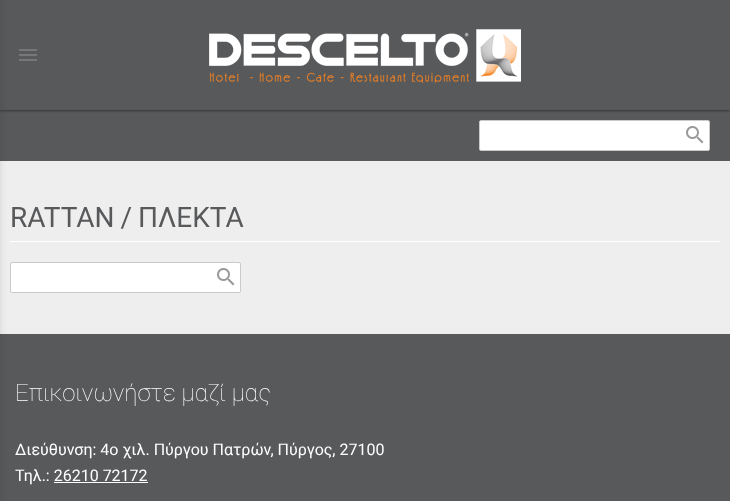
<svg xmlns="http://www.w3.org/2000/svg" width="730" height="501">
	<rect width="100%" height="100%" fill="#EEEEEE" />
	<rect x="0" y="110" width="730" height="51" fill="#58595B" />
	<rect x="0" y="1" width="730" height="110" fill="#000000" fill-opacity="0.4" filter="blur(1px)" />
	<rect x="0" y="0" width="730" height="110" fill="#58595B" />
	<image x="19" y="49" width="18" height="12" href="assets/img1.png" />
	<image x="209" y="29" width="312" height="54" href="assets/img2.png" />
	<rect x="10" y="241" width="710" height="1" fill="#FFFFFF" />
	<rect x="10.5" y="262.5" width="230" height="30" rx="1.5" fill="#FFFFFF" stroke="#CACACA" />
	<rect x="0" y="334" width="730" height="167" fill="#58595B" />
	<rect x="-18" y="0" width="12" height="501" fill="#000000" fill-opacity="0.4" filter="blur(6px)" />
	<rect x="479.5" y="120.5" width="230" height="30" rx="1.5" fill="#FFFFFF" stroke="#CACACA" />
	<image x="686" y="126" width="18" height="18" href="assets/img3.png" />
	<text x="10" y="227" word-spacing="-1" font-family="Roboto" font-size="28" fill="#58595B">RATTAN / ΠΛΕΚΤΑ</text>
	<image x="217" y="268" width="18" height="18" href="assets/img3.png" />
	<text x="15" y="401" font-family="Roboto" font-size="24" font-weight="100" fill="#FFFFFF">Επικοινωνήστε μαζί μας</text>
	<g font-family="Roboto" font-size="16" fill="#FFFFFF">
		<text x="15" y="455">Διεύθυνση: 4ο χιλ. Πύργου Πατρών, Πύργος, 27100</text>
		<text x="15" y="481">Τηλ.: 26210 72172</text>
	</g>
	<rect x="54" y="482" width="94" height="1" fill="#FFFFFF" />
</svg>
